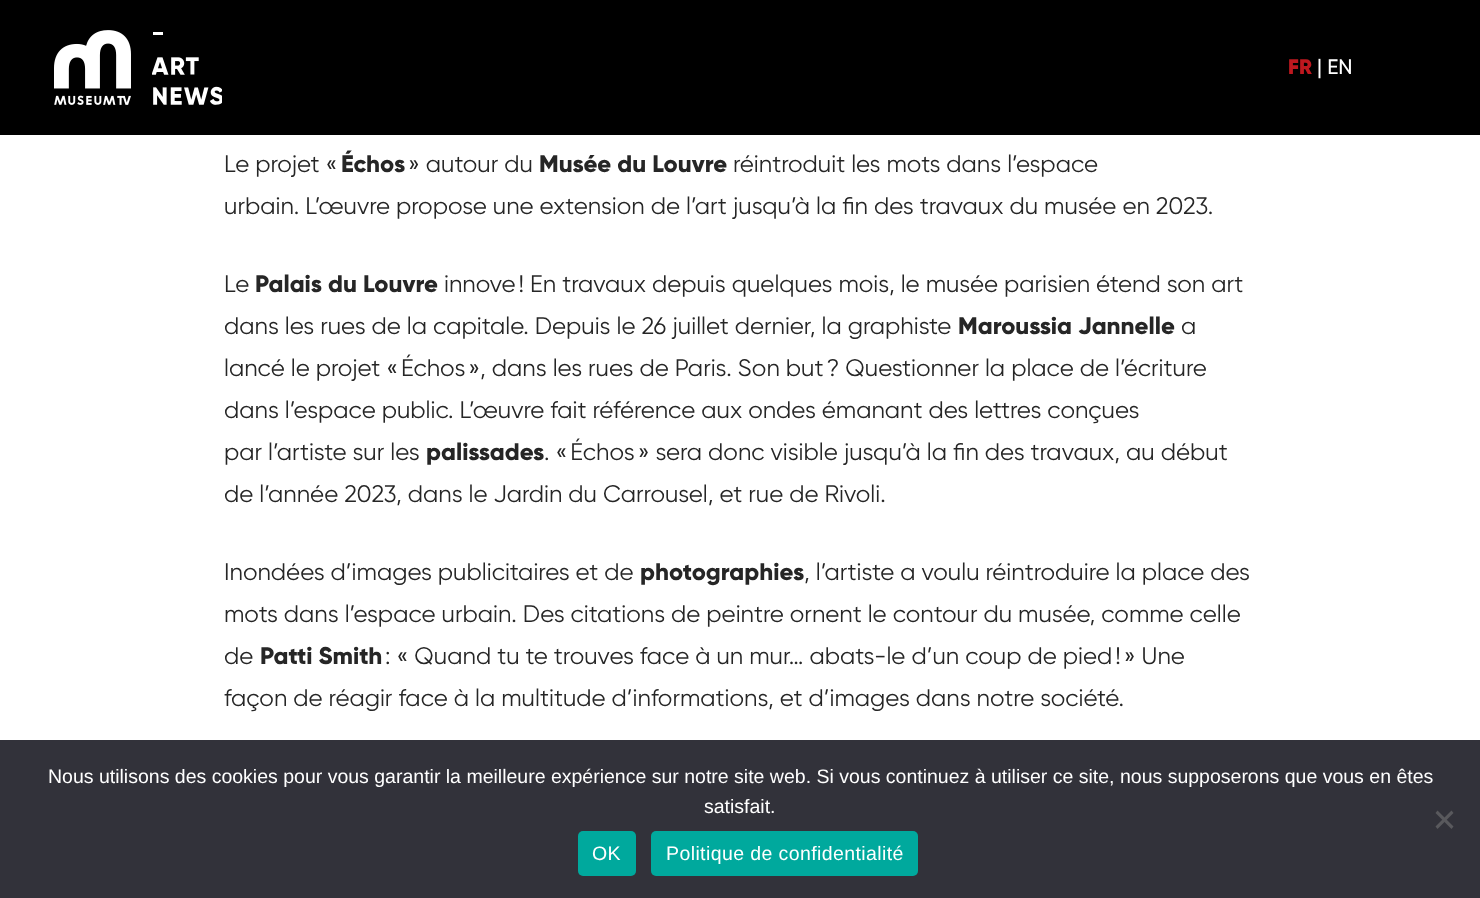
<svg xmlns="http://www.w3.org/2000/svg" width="1480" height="898">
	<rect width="100%" height="100%" fill="#FFFFFF" />
	<rect x="0" y="0" width="1480" height="135" fill="#000000" />
	<image x="54" y="30" width="77" height="75" href="assets/img1.png" />
	<image x="152" y="32" width="70" height="73" href="assets/img2.png" />
	<text x="1288" y="74" font-family="Gilroy" font-size="21" font-weight="900" fill="#BE181F">FR</text>
	<text x="1317" y="74" font-family="Gilroy" font-size="21" font-weight="500" fill="#FFFFFF">| EN</text>
	<text x="224" y="172" font-family="Gilroy" font-size="24" fill="#262626">Le projet «</text>
	<text x="341" y="172" font-family="Gilroy" font-size="24" font-weight="800" fill="#262626">Échos</text>
	<text x="408" y="172" font-family="Gilroy" font-size="24" fill="#262626">» autour du</text>
	<text x="539" y="172" font-family="Gilroy" font-size="24" font-weight="800" fill="#262626">Musée du Louvre</text>
	<g font-family="Gilroy" font-size="24" fill="#262626">
		<text x="733" y="172">réintroduit les mots dans l’espace</text>
		<text x="224" y="214">urbain. L’œuvre propose une extension de l’art jusqu’à la fin des travaux du musée en 2023.</text>
		<text x="224" y="292">Le</text>
	</g>
	<text x="255" y="292" font-family="Gilroy" font-size="24" font-weight="800" fill="#262626">Palais du Louvre</text>
	<g font-family="Gilroy" font-size="24" fill="#262626">
		<text x="444" y="292">innove ! En travaux depuis quelques mois, le musée parisien étend son art</text>
		<text x="224" y="334">dans les rues de la capitale. Depuis le 26 juillet dernier, la graphiste</text>
	</g>
	<text x="958" y="334" font-family="Gilroy" font-size="24" font-weight="800" fill="#262626">Maroussia Jannelle</text>
	<g font-family="Gilroy" font-size="24" fill="#262626">
		<text x="1181" y="334">a</text>
		<text x="224" y="376">lancé le projet « Échos », dans les rues de Paris. Son but ? Questionner la place de l’écriture</text>
		<text x="224" y="418">dans l’espace public. L’œuvre fait référence aux ondes émanant des lettres conçues</text>
		<text x="224" y="460">par l’artiste sur les</text>
	</g>
	<text x="426" y="460" font-family="Gilroy" font-size="24" font-weight="800" fill="#262626">palissades</text>
	<g font-family="Gilroy" font-size="24" fill="#262626">
		<text x="544" y="460">. « Échos » sera donc visible jusqu’à la fin des travaux, au début</text>
		<text x="224" y="502">de l’année 2023, dans le Jardin du Carrousel, et rue de Rivoli.</text>
		<text x="224" y="580">Inondées d’images publicitaires et de</text>
	</g>
	<text x="640" y="580" font-family="Gilroy" font-size="24" font-weight="800" fill="#262626">photographies</text>
	<g font-family="Gilroy" font-size="24" fill="#262626">
		<text x="804" y="580">, l’artiste a voulu réintroduire la place des</text>
		<text x="224" y="622">mots dans l’espace urbain. Des citations de peintre ornent le contour du musée, comme celle</text>
		<text x="224" y="664">de</text>
	</g>
	<text x="260" y="664" font-family="Gilroy" font-size="24" font-weight="800" fill="#262626">Patti Smith</text>
	<g font-family="Gilroy" font-size="24" fill="#262626">
		<text x="385" y="664">: « Quand tu te trouves face à un mur… abats-le d’un coup de pied ! » Une</text>
		<text x="224" y="706">façon de réagir face à la multitude d’informations, et d’images dans notre société.</text>
	</g>
	<rect x="0" y="740" width="1480" height="158" fill="#32323A" />
	<g font-family="Liberation Sans" font-size="19.5" fill="#FFFFFF">
		<text x="48" y="783">Nous utilisons des cookies pour vous garantir la meilleure expérience sur notre site web. Si vous continuez à utiliser ce site, nous supposerons que vous en êtes</text>
		<text x="704" y="813">satisfait.</text>
	</g>
	<path d="M1451.5 810.5L1453.5 813L1437.5 829L1435.5 826.5Z" fill="#59595D" />
	<path d="M1435.5 813L1437.5 810.5L1453.5 826.5L1451.5 829Z" fill="#59595D" />
	<rect x="578" y="831" width="58" height="45" rx="5" fill="#00A99D" />
	<text x="592" y="860" font-family="Liberation Sans" font-size="19.5" letter-spacing="0.4" fill="#FFFFFF">OK</text>
	<rect x="651" y="831" width="267" height="45" rx="5" fill="#00A99D" />
	<text x="666" y="860" font-family="Liberation Sans" font-size="19.5" letter-spacing="0.4" fill="#FFFFFF">Politique de confidentialité</text>
</svg>
